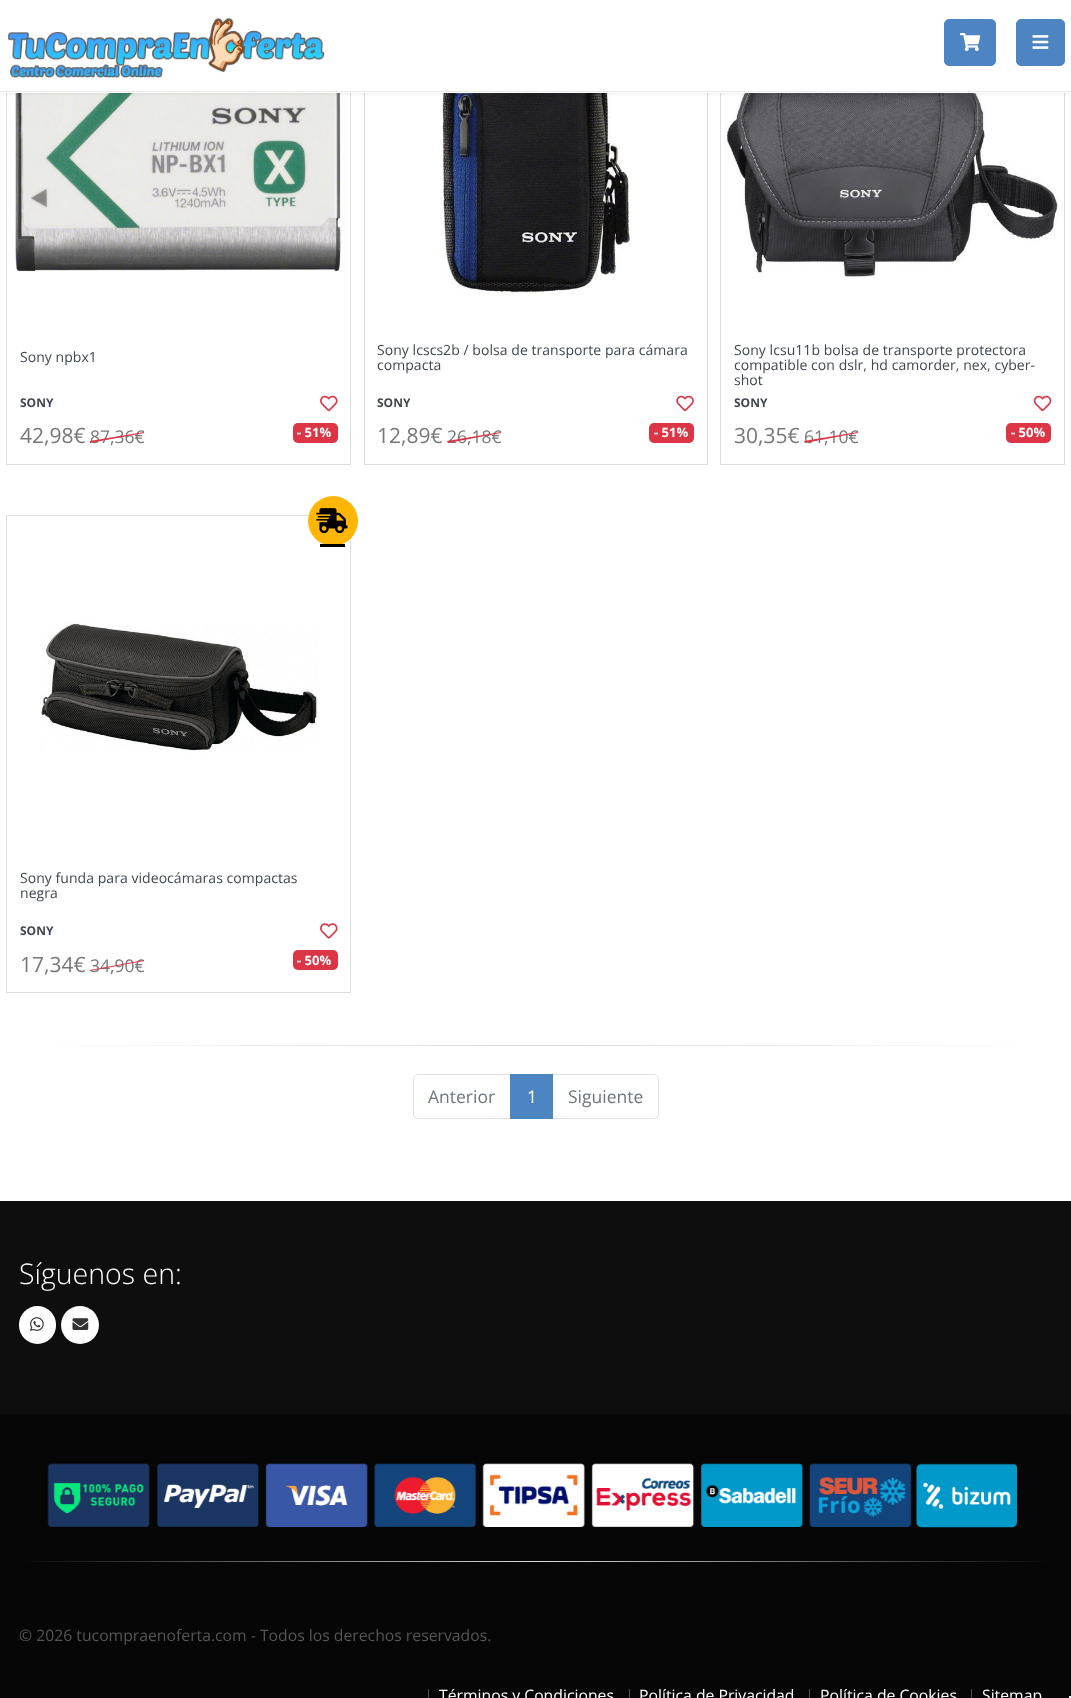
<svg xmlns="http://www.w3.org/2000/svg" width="1071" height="1698">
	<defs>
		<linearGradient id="g1" gradientUnits="userSpaceOnUse" x1="1053" y1="1046" x2="19" y2="1046"><stop offset="0" stop-color="#FFFFFF" /><stop offset="0.5" stop-color="#DBDBDB" /><stop offset="1" stop-color="#FFFFFF" /></linearGradient>
		<linearGradient id="g2" gradientUnits="userSpaceOnUse" x1="1053" y1="1562" x2="19" y2="1562"><stop offset="0" stop-color="#060606" /><stop offset="0.5" stop-color="#DBDBDB" /><stop offset="1" stop-color="#060606" /></linearGradient>
	</defs>
	<rect width="100%" height="100%" fill="#FFFFFF" />
	<rect x="6.5" y="-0.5" width="344" height="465" fill="none" stroke="#DDDDDD" />
	<image x="12" y="93" width="331" height="179" href="assets/img4.png" />
	<rect x="364.5" y="-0.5" width="343" height="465" fill="none" stroke="#DDDDDD" />
	<image x="438" y="93" width="193" height="203" href="assets/img6.png" />
	<rect x="720.5" y="-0.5" width="344" height="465" fill="none" stroke="#DDDDDD" />
	<image x="726" y="93" width="333" height="186" href="assets/img8.png" />
	<rect x="0" y="-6" width="1071" height="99" fill="#000000" fill-opacity="0.1" filter="blur(2px)" />
	<rect x="0" y="0" width="1071" height="93" fill="#FFFFFF" />
	<rect x="0" y="91" width="1071" height="1" fill="#E9E9E9" />
	<image x="7" y="18" width="318" height="60" href="assets/img1.png" />
	<rect x="944.5" y="19.5" width="51" height="46" rx="4.5" fill="#4D85C3" stroke="#4D85C3" />
	<image x="960" y="33" width="21" height="18" href="assets/img2.png" />
	<rect x="1016.5" y="19.5" width="48" height="46" rx="4.5" fill="#4D85C3" stroke="#4D85C3" />
	<image x="1032" y="35" width="17" height="14" href="assets/img3.png" />
	<text x="20" y="362" font-family="Open Sans" font-size="14" letter-spacing="0.05" fill="#404751">Sony npbx1</text>
	<text x="20" y="407" font-family="Open Sans" font-size="12" font-weight="700" fill="#404751">SONY</text>
	<image x="320" y="395" width="18" height="17" href="assets/img5.png" />
	<text x="20" y="443" font-family="Open Sans" font-size="21" fill="#777777">42,98€</text>
	<text x="90" y="443" font-family="Open Sans" font-size="17.5" fill="#777777">87,36€</text>
	<path d="M90 441L144 432V433L90 443Z" fill="#DC3545" />
	<rect x="293" y="423" width="45" height="20" rx="5" fill="#DC3545" />
	<text x="297" y="437" font-family="Open Sans" font-size="13" font-weight="700" fill="#FFFFFF">- 51%</text>
	<text x="595" y="144" font-family="Open Sans" font-size="17.5" fill="#232325">S</text>
	<g font-family="Open Sans" font-size="14" letter-spacing="0.05" fill="#404751">
		<text x="377" y="355">Sony lcscs2b / bolsa de transporte para cámara</text>
		<text x="377" y="370">compacta</text>
	</g>
	<text x="377" y="407" font-family="Open Sans" font-size="12" font-weight="700" fill="#404751">SONY</text>
	<image x="676" y="395" width="18" height="17" href="assets/img7.png" />
	<text x="377" y="443" font-family="Open Sans" font-size="21" fill="#777777">12,89€</text>
	<text x="447" y="443" font-family="Open Sans" font-size="17.5" fill="#777777">26,18€</text>
	<path d="M447 441L501 432V433L448 443Z" fill="#DC3545" />
	<rect x="649" y="423" width="45" height="20" rx="5" fill="#DC3545" />
	<text x="654" y="437" font-family="Open Sans" font-size="13" font-weight="700" fill="#FFFFFF">- 51%</text>
	<g font-family="Open Sans" font-size="14" letter-spacing="0.05" fill="#404751">
		<text x="734" y="355">Sony lcsu11b bolsa de transporte protectora</text>
		<text x="734" y="370">compatible con dslr, hd camorder, nex, cyber-</text>
		<text x="734" y="385">shot</text>
	</g>
	<text x="734" y="407" font-family="Open Sans" font-size="12" font-weight="700" fill="#404751">SONY</text>
	<image x="1033" y="395" width="19" height="17" href="assets/img9.png" />
	<text x="734" y="443" font-family="Open Sans" font-size="21" fill="#777777">30,35€</text>
	<text x="804" y="443" font-family="Open Sans" font-size="17.5" fill="#777777">61,10€</text>
	<path d="M804 441L858 432V433L805 443Z" fill="#DC3545" />
	<rect x="1006" y="423" width="45" height="20" rx="5" fill="#DC3545" />
	<text x="1011" y="437" font-family="Open Sans" font-size="13" font-weight="700" fill="#FFFFFF">- 50%</text>
	<rect x="6.5" y="515.5" width="344" height="477" fill="none" stroke="#DDDDDD" />
	<circle cx="333" cy="521" r="25" fill="#FFB607" />
	<rect x="320" y="544" width="25" height="3" fill="#000000" />
	<image x="316" y="508" width="32" height="26" href="assets/img10.png" />
	<image x="40" y="622" width="278" height="131" href="assets/img11.png" />
	<g font-family="Open Sans" font-size="14" letter-spacing="0.05" fill="#404751">
		<text x="20" y="883">Sony funda para videocámaras compactas</text>
		<text x="20" y="898">negra</text>
	</g>
	<text x="20" y="935" font-family="Open Sans" font-size="12" font-weight="700" fill="#404751">SONY</text>
	<image x="320" y="923" width="18" height="16" href="assets/img12.png" />
	<text x="20" y="972" font-family="Open Sans" font-size="21" fill="#777777">17,34€</text>
	<text x="90" y="972" font-family="Open Sans" font-size="17.5" fill="#777777">34,90€</text>
	<path d="M90 970L144 960V961L90 971Z" fill="#DC3545" />
	<rect x="293" y="950" width="45" height="20" rx="5" fill="#DC3545" />
	<text x="297" y="965" font-family="Open Sans" font-size="13" font-weight="700" fill="#FFFFFF">- 50%</text>
	<rect x="55" y="1045" width="962" height="1" fill="url(#g1)" />
	<path d="M418 1074.5H510.5V1118.5H418C415.5 1118.5 413.5 1116.5 413.5 1114V1079C413.5 1076.5 415.5 1074.5 418 1074.5Z" fill="none" stroke="#DEE2E6" />
	<text x="428" y="1103" font-family="Open Sans" font-size="17.5" fill="#6C757D">Anterior</text>
	<path d="M551.5 1074.5H654C656.5 1074.5 658.5 1076.5 658.5 1079V1114C658.5 1116.5 656.5 1118.5 654 1118.5H551.5Z" fill="none" stroke="#DEE2E6" />
	<rect x="510" y="1074" width="43" height="45" fill="#4D85C3" />
	<text x="527" y="1103" font-family="Open Sans" font-size="17.5" fill="#FFFFFF">1</text>
	<text x="568" y="1103" font-family="Open Sans" font-size="17.5" fill="#6C757D">Siguiente</text>
	<rect x="0" y="1201" width="1071" height="213" fill="#0E0E0E" />
	<text x="19" y="1284" font-family="Open Sans" font-size="28.5" font-weight="300" fill="#FFFFFF">Síguenos en:</text>
	<rect x="19" y="1306" width="37" height="38" rx="18.5" fill="#FFFFFF" />
	<image x="30" y="1317" width="14" height="14" href="assets/img13.png" />
	<circle cx="80" cy="1325" r="19" fill="#FFFFFF" />
	<image x="72" y="1318" width="17" height="12" href="assets/img14.png" />
	<rect x="0" y="1414" width="1071" height="284" fill="#060606" />
	<image x="47" y="1463" width="970" height="65" href="assets/img15.png" />
	<rect x="19" y="1561" width="1034" height="1" fill="url(#g2)" />
	<text x="19" y="1641" font-family="Open Sans" font-size="15.75" fill="#555555">© 2026 tucompraenoferta.com - Todos los derechos reservados.</text>
	<rect x="428" y="1689" width="1" height="9" fill="#505050" />
	<text x="439" y="1701" font-family="Open Sans" font-size="15.75" fill="#FFFFFF">Términos y Condiciones</text>
	<rect x="629" y="1689" width="1" height="9" fill="#505050" />
	<text x="639" y="1701" font-family="Open Sans" font-size="15.75" fill="#FFFFFF">Política de Privacidad</text>
	<rect x="809" y="1689" width="1" height="9" fill="#505050" />
	<text x="820" y="1701" font-family="Open Sans" font-size="15.75" fill="#FFFFFF">Política de Cookies</text>
	<rect x="971" y="1689" width="1" height="9" fill="#505050" />
	<text x="982" y="1701" font-family="Open Sans" font-size="15.75" fill="#FFFFFF">Sitemap</text>
	<rect x="1069" y="1696" width="2" height="2" fill="#F5F5F5" />
</svg>
